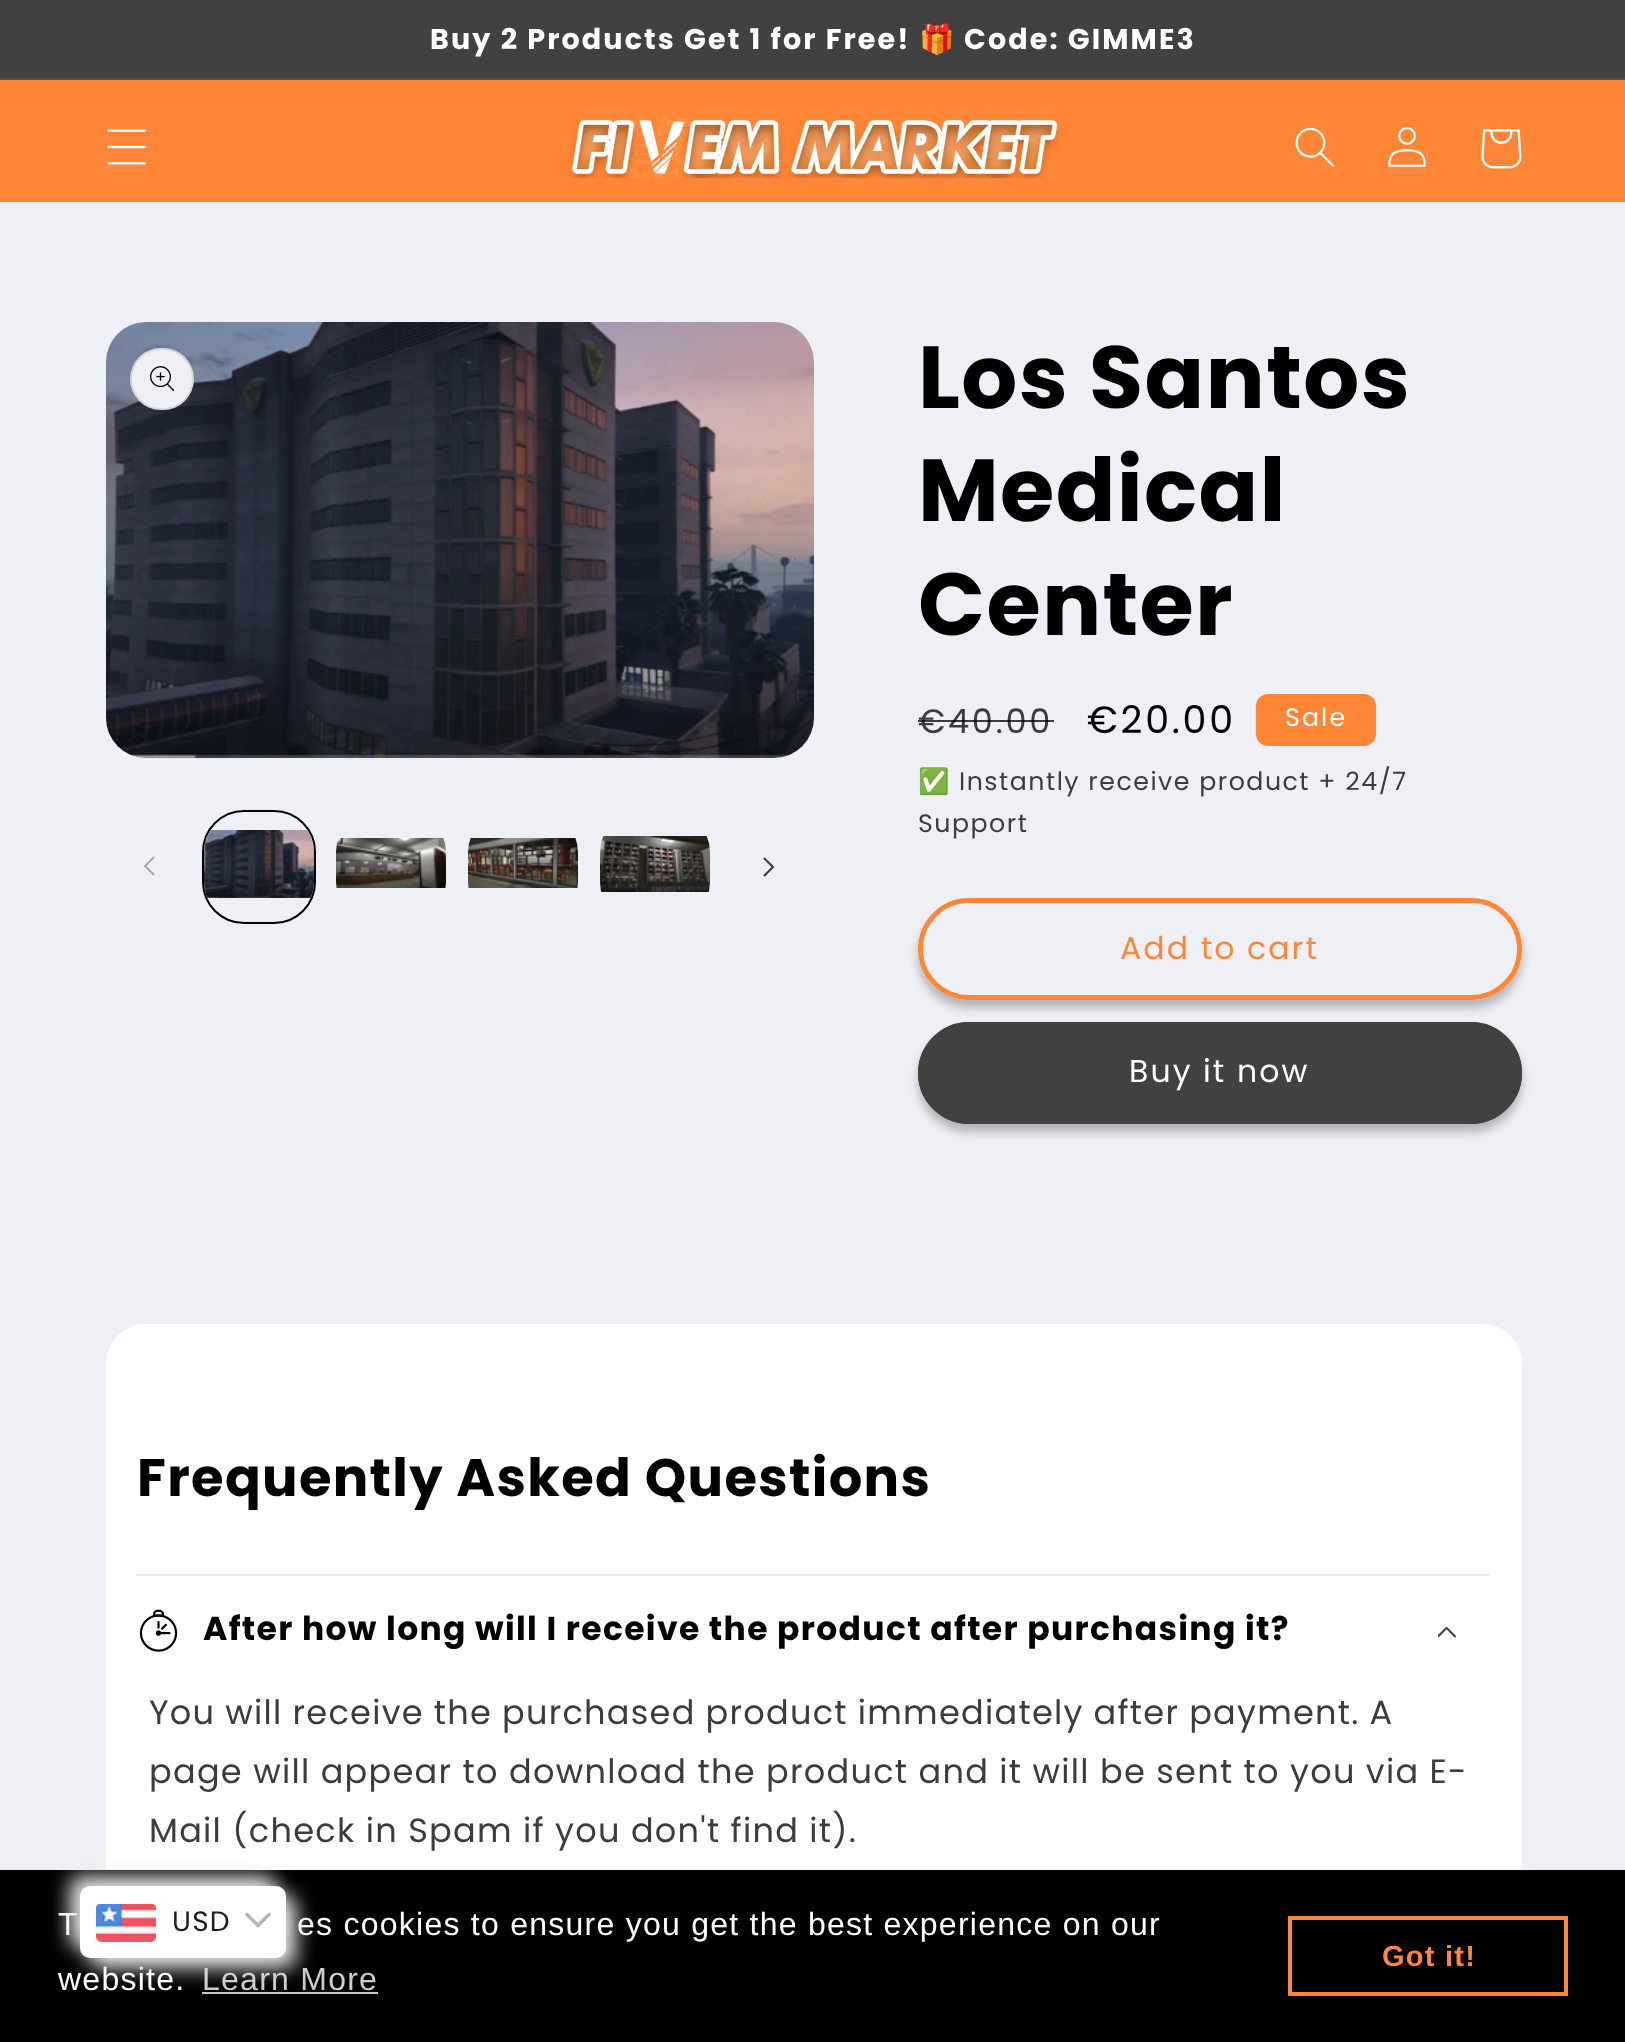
<svg xmlns="http://www.w3.org/2000/svg" width="1625" height="2042">
	<rect width="100%" height="100%" fill="#EFF0F5" />
	<rect x="0" y="0" width="1625" height="78" fill="#414141" />
	<rect x="0" y="78" width="1625" height="2" fill="#505050" />
	<text x="430" y="49" font-family="Poppins" font-size="28.6" font-weight="700" letter-spacing="2.1" fill="#FFFFFF">Buy 2 Products Get 1 for Free!</text>
	<text x="919" y="49" font-family="Noto Color Emoji" font-size="28.6" font-weight="700" letter-spacing="2.1" fill="#FFFFFF">🎁</text>
	<text x="964" y="49" font-family="Poppins" font-size="28.6" font-weight="700" letter-spacing="2.1" fill="#FFFFFF">Code: GIMME3</text>
	<rect x="0" y="80" width="1625" height="122" fill="#FF8637" />
	<image x="107" y="129" width="40" height="36" href="assets/img1.png" />
	<image x="569" y="116" width="491" height="62" href="assets/img2.png" />
	<image x="1295" y="127" width="39" height="40" href="assets/img3.png" />
	<image x="1388" y="127" width="38" height="40" href="assets/img4.png" />
	<image x="1481" y="129" width="41" height="40" href="assets/img5.png" />
	<image x="106" y="322" width="708" height="436" href="assets/img6.png" />
	<rect x="130" y="348" width="64" height="62" rx="31" fill="#EFF0F5" />
	<rect x="131" y="349" width="62" height="60" rx="30" fill="none" stroke="#000000" stroke-opacity="0.1" stroke-width="2" />
	<image x="150" y="366" width="24" height="26" href="assets/img7.png" />
	<image x="144" y="856" width="11" height="20" href="assets/img8.png" />
	<rect x="203" y="811" width="112" height="112" rx="41" fill="none" stroke="#000000" stroke-width="2" />
	<image x="204" y="830" width="110" height="68" href="assets/img9.png" />
	<image x="336" y="838" width="110" height="50" href="assets/img10.png" />
	<image x="468" y="838" width="110" height="50" href="assets/img11.png" />
	<image x="600" y="836" width="110" height="56" href="assets/img12.png" />
	<image x="763" y="857" width="11" height="20" href="assets/img13.png" />
	<g font-family="Poppins" font-size="88" font-weight="700" letter-spacing="1.32" fill="#000000">
		<text x="918" y="408">Los Santos</text>
		<text x="918" y="521">Medical</text>
		<text x="918" y="635">Center</text>
	</g>
	<text x="918" y="733" font-family="Poppins" font-size="33.6" letter-spacing="2.75" fill="#3C3C3D">€40.00</text>
	<rect x="918" y="720" width="136" height="2" fill="#000000" fill-opacity="0.75" />
	<text x="1087" y="733" font-family="Poppins" font-size="38" letter-spacing="2.75" fill="#000000">€20.00</text>
	<rect x="1257" y="695" width="118" height="50" rx="11" fill="#FF8637" stroke="#FF8637" stroke-width="2" />
	<text x="1285" y="726" font-family="Poppins" font-size="25.25" letter-spacing="2.1" fill="#FFFFFF">Sale</text>
	<text x="918" y="790" font-family="Noto Color Emoji" font-size="25.25" letter-spacing="1.5" fill="#3C3C3D">✅</text>
	<g font-family="Poppins" font-size="25.25" letter-spacing="1.5" fill="#3C3C3D">
		<text x="959" y="790">Instantly receive product + 24/7</text>
		<text x="918" y="832">Support</text>
	</g>
	<rect x="918" y="906" width="604" height="102" rx="51" fill="#000000" fill-opacity="0.25" filter="blur(5px)" />
	<rect x="918" y="898" width="604" height="102" rx="51" fill="#EFF0F5" />
	<rect x="920" y="900" width="600" height="98" rx="49" fill="none" stroke="#EFF0F5" stroke-width="4" />
	<rect x="920.5" y="900.5" width="599" height="97" rx="48.5" fill="none" stroke="#FF8637" stroke-width="5" />
	<text x="1120" y="959" font-family="Poppins" font-size="31.5" letter-spacing="2.1" fill="#FF8637">Add to cart</text>
	<rect x="918" y="1030" width="604" height="102" rx="51" fill="#000000" fill-opacity="0.25" filter="blur(5px)" />
	<rect x="918" y="1022" width="604" height="102" rx="51" fill="#414141" />
	<rect x="920" y="1024" width="600" height="98" rx="49" fill="none" stroke="#414141" stroke-width="4" />
	<text x="1129" y="1082" font-family="Poppins" font-size="31.5" letter-spacing="2.1" fill="#FFFFFF">Buy it now</text>
	<rect x="106" y="1324" width="1416" height="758" rx="40" fill="#FFFFFF" />
	<text x="137" y="1496" font-family="Poppins" font-size="52.75" font-weight="700" letter-spacing="1.32" fill="#000000">Frequently Asked Questions</text>
	<rect x="136" y="1574" width="1354" height="2" fill="#EBEBEB" />
	<image x="139" y="1609" width="39" height="43" href="assets/img14.png" />
	<text x="203" y="1640" font-family="Poppins" font-size="33" font-weight="700" letter-spacing="1.32" fill="#000000">After how long will I receive the product after purchasing it?</text>
	<image x="1438" y="1626" width="18" height="12" href="assets/img15.png" />
	<g font-family="Poppins" font-size="33.6" letter-spacing="1.25" fill="#3C3C3D">
		<text x="149" y="1724" word-spacing="-0.25">You will receive the purchased product immediately after payment. A</text>
		<text x="149" y="1783">page will appear to download the product and it will be sent to you via E-</text>
		<text x="149" y="1842">Mail (check in Spam if you don't find it).</text>
	</g>
	<rect x="0" y="1870" width="1625" height="172" fill="#000000" />
	<g font-family="Liberation Sans" font-size="32" letter-spacing="1.25" fill="#FFFFFF">
		<text x="58" y="1935">T</text>
		<text x="297" y="1935">es cookies to ensure you get the best experience on our</text>
		<text x="58" y="1990">website.</text>
	</g>
	<text x="202" y="1990" font-family="Liberation Sans" font-size="32" letter-spacing="1.25" fill="#CCCCCC">Learn More</text>
	<rect x="202" y="1992" width="176" height="2" fill="#CCCCCC" />
	<rect x="1290" y="1918" width="276" height="76" fill="none" stroke="#FF8637" stroke-width="4" />
	<text x="1382" y="1966" font-family="Liberation Sans" font-size="29" font-weight="700" letter-spacing="1.25" fill="#FF8637">Got it!</text>
	<rect x="70" y="1876" width="206" height="72" rx="10" fill="#E8E8E8" filter="blur(10px)" />
	<rect x="90" y="1896" width="206" height="72" rx="10" fill="#E8E8E8" filter="blur(10px)" />
	<rect x="80" y="1886" width="206" height="72" rx="10" fill="#FFFFFF" />
	<image x="96" y="1904" width="60" height="38" href="assets/img16.png" />
	<text x="172" y="1931" font-family="Poppins" font-size="28" letter-spacing="1.25" fill="#1E1E1E">USD</text>
	<path d="M247 1914.5L258 1925.5L269 1914.5" fill="none" stroke="#B7B7B7" stroke-width="3.6" stroke-linecap="round" stroke-linejoin="round" />
</svg>
